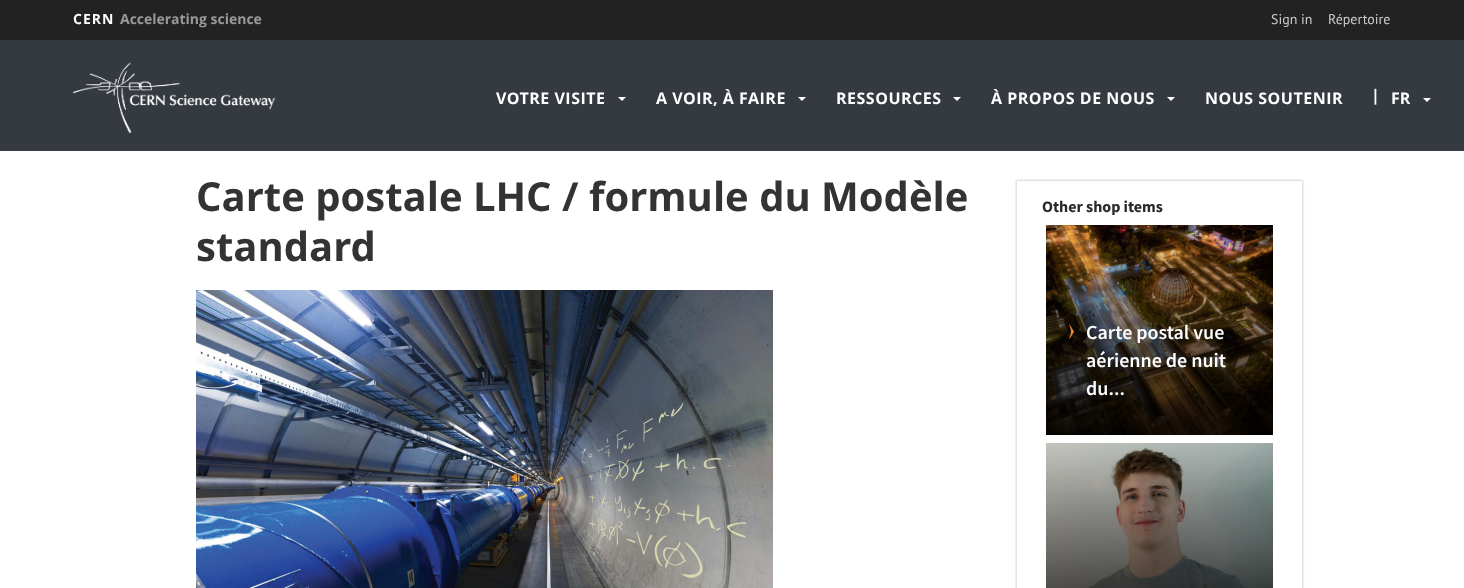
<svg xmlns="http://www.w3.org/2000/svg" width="1464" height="588">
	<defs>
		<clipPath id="clip1"><path d="M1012 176H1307V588H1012ZM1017 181H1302V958H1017Z" clip-rule="evenodd" /></clipPath>
	</defs>
	<rect width="100%" height="100%" fill="#FFFFFF" />
	<rect x="0" y="0" width="1464" height="40" fill="#222222" />
	<text x="73" y="24" font-family="Open Sans" font-size="14" font-weight="700" letter-spacing="1" fill="#FDFEFF">CERN</text>
	<text x="120" y="24" font-family="Open Sans" font-size="14" font-weight="700" fill="#999999">Accelerating science</text>
	<g font-family="PT Sans" font-size="14" fill="#CCCCCC">
		<text x="1271" y="24">Sign in</text>
		<text x="1328" y="24">Répertoire</text>
	</g>
	<rect x="0" y="40" width="1464" height="111" fill="#343A40" />
	<image x="73" y="62" width="203" height="72" href="assets/img1.png" />
	<text x="496" y="104" font-family="Open Sans" font-size="16" font-weight="700" letter-spacing="0.5" fill="#FDFEFF">VOTRE VISITE</text>
	<path d="M618 97H626L622 101Z" fill="#FFFFFE" />
	<text x="656" y="104" font-family="Open Sans" font-size="16" font-weight="700" letter-spacing="0.5" fill="#FDFEFF">A VOIR, À FAIRE</text>
	<path d="M798 97H806L802 101Z" fill="#FFFFFE" />
	<text x="836" y="104" font-family="Open Sans" font-size="16" font-weight="700" letter-spacing="0.5" fill="#FDFEFF">RESSOURCES</text>
	<path d="M953 97H961L957 101Z" fill="#FFFFFE" />
	<text x="991" y="104" font-family="Open Sans" font-size="16" font-weight="700" letter-spacing="0.5" fill="#FDFEFF">À PROPOS DE NOUS</text>
	<path d="M1167 97H1175L1171 101Z" fill="#FFFFFE" />
	<text x="1205" y="104" font-family="Open Sans" font-size="16" font-weight="700" letter-spacing="0.5" fill="#FDFEFF">NOUS SOUTENIR</text>
	<g font-family="Open Sans" font-size="16" font-weight="700" fill="#FDFEFF">
		<text x="1371" y="101">|</text>
		<text x="1391" y="104">FR</text>
	</g>
	<path d="M1423 98H1431L1427 102Z" fill="#FFFFFE" />
	<g font-family="Open Sans" font-size="40" font-weight="700" fill="#333333">
		<text x="196" y="211">Carte postale LHC / formule du Modèle</text>
		<text x="196" y="261">standard</text>
	</g>
	<image x="196" y="290" width="577" height="298" href="assets/img2.png" />
	<g clip-path="url(#clip1)">
		<rect x="1016" y="180" width="287" height="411" fill="#D3D3D3" filter="blur(1px)" />
	</g>
	<text x="1042" y="212" font-family="Source Sans Pro" font-size="16" font-weight="700" fill="#292929">Other shop items</text>
	<image x="1046" y="225" width="227" height="210" href="assets/img3.png" />
	<image x="1069" y="324" width="5" height="15" href="assets/img4.png" />
	<g font-family="Source Sans Pro" font-size="20" font-weight="600" fill="#FDFEFF">
		<text x="1086" y="339">Carte postal vue</text>
		<text x="1086" y="367">aérienne de nuit</text>
		<text x="1086" y="395">du...</text>
	</g>
	<image x="1046" y="443" width="227" height="145" href="assets/img5.png" />
</svg>
